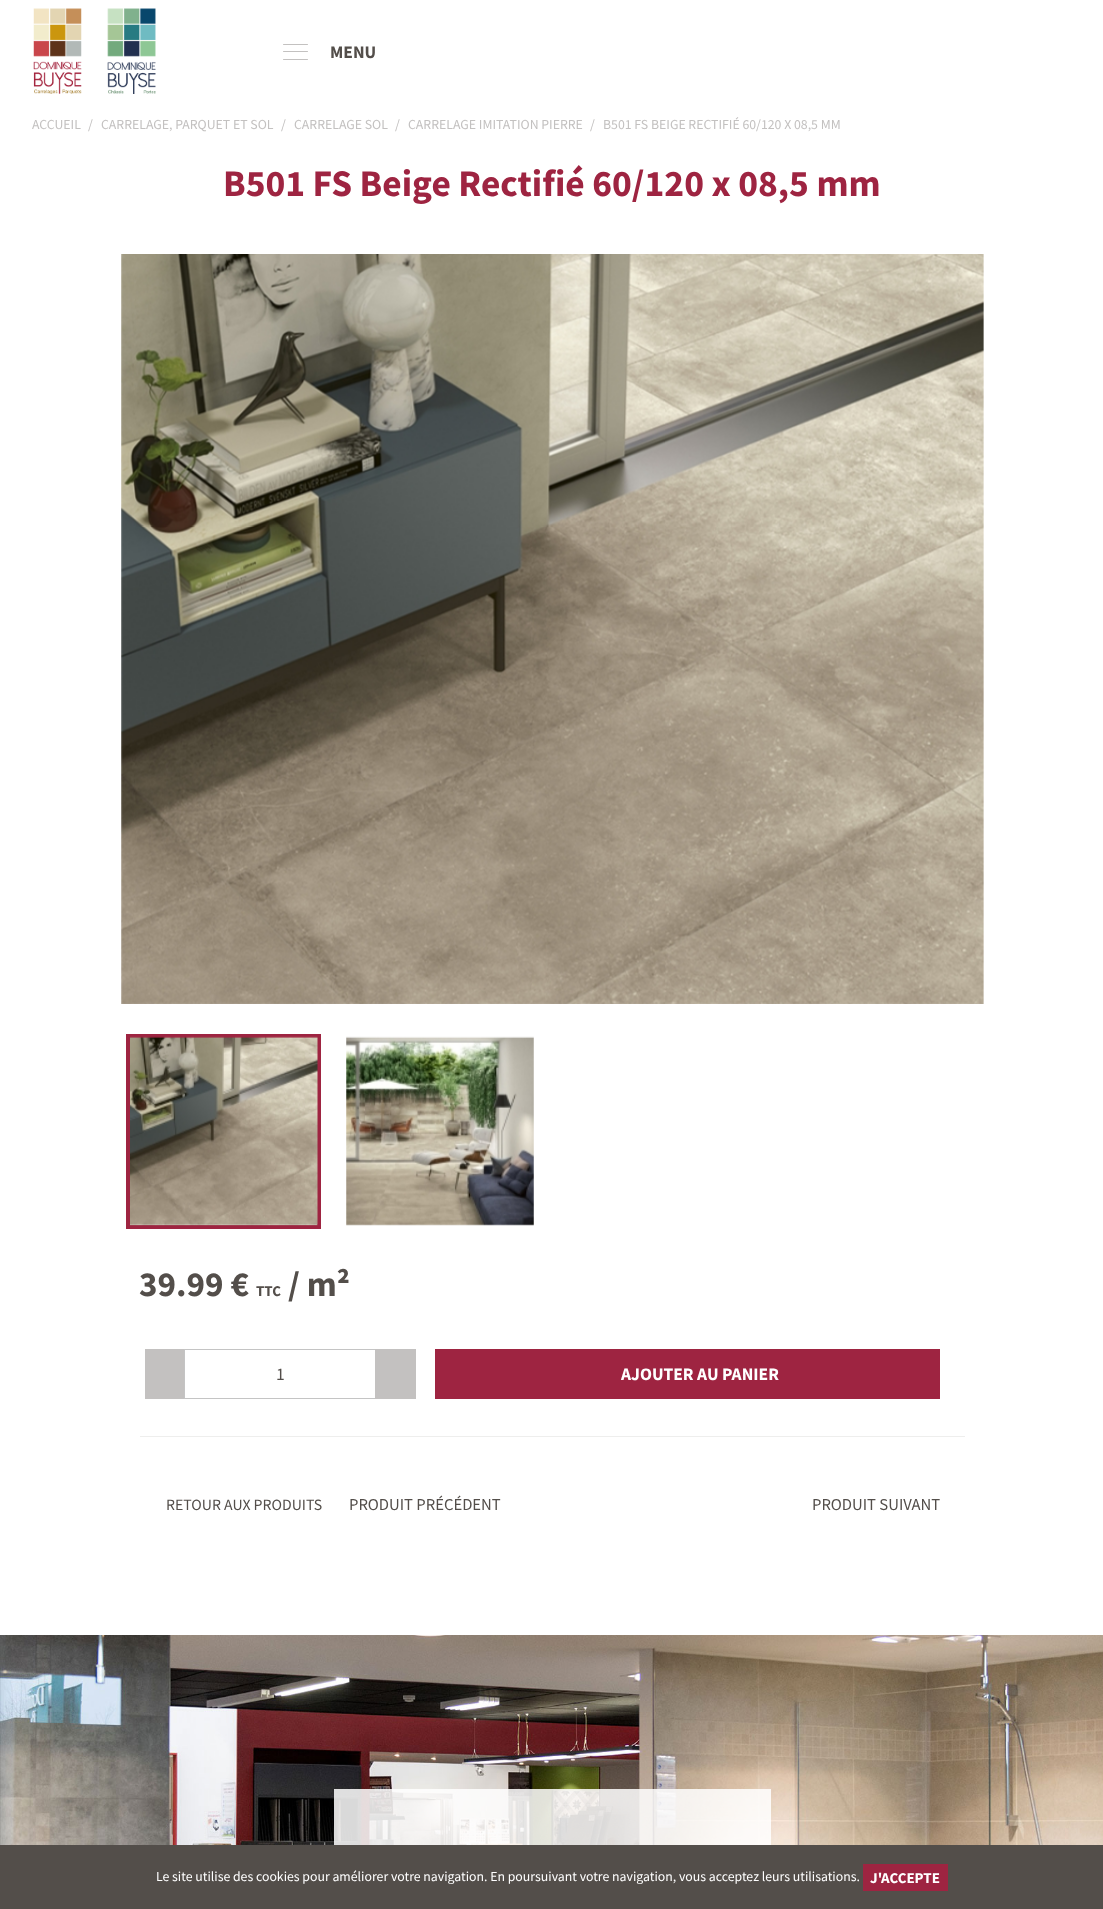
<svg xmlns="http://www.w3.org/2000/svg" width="1103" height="1909">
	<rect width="100%" height="100%" fill="#FFFFFF" />
	<image x="33" y="8" width="123" height="86" href="assets/img1.png" />
	<rect x="283" y="44" width="25" height="1" rx="0.5" fill="#C3C1C0" />
	<rect x="283" y="51" width="25" height="1" rx="0.5" fill="#C3C1C0" />
	<rect x="283" y="59" width="25" height="1" rx="0.5" fill="#C3C1C0" />
	<text x="330" y="58" font-family="Source Sans Pro" font-size="17.5" font-weight="700" fill="#534E4A">MENU</text>
	<g font-family="Source Sans Pro" font-size="13.75" fill="#C3C1C0">
		<text x="32" y="129">ACCUEIL</text>
		<text x="88" y="129">/</text>
		<text x="101" y="129">CARRELAGE, PARQUET ET SOL</text>
		<text x="281" y="129">/</text>
		<text x="294" y="129">CARRELAGE SOL</text>
		<text x="395" y="129">/</text>
		<text x="408" y="129">CARRELAGE IMITATION PIERRE</text>
		<text x="590" y="129">/</text>
		<text x="603" y="129">B501 FS BEIGE RECTIFIÉ 60/120 X 08,5 MM</text>
	</g>
	<text x="223" y="196" font-family="Source Sans Pro" font-size="37.5" font-weight="700" fill="#9E2441">B501 FS Beige Rectifié 60/120 x 08,5 mm</text>
	<image x="121" y="254" width="863" height="750" href="assets/img2.png" />
	<rect x="128" y="1036" width="191" height="191" fill="none" stroke="#9E2441" stroke-width="4" />
	<image x="130" y="1036" width="188" height="190" href="assets/img3.png" />
	<image x="346" y="1036" width="188" height="190" href="assets/img4.png" />
	<text x="139" y="1296" font-family="Source Sans Pro" font-size="35" font-weight="700" fill="#534E4A">39.99 €</text>
	<text x="256" y="1296" font-family="Source Sans Pro" font-size="15" font-weight="700" fill="#534E4A">TTC</text>
	<text x="288" y="1296" font-family="Source Sans Pro" font-size="35" font-weight="700" fill="#534E4A">/ m²</text>
	<rect x="145" y="1349" width="39" height="50" fill="#C3C1C0" />
	<rect x="184.5" y="1349.5" width="191" height="49" fill="none" stroke="#C4C4C4" />
	<text x="276" y="1380" font-family="Source Sans Pro" font-size="17.5" fill="#534E4A">1</text>
	<rect x="375" y="1349" width="41" height="50" fill="#C3C1C0" />
	<rect x="435" y="1349" width="505" height="50" fill="#9E2441" />
	<text x="621" y="1380" font-family="Source Sans Pro" font-size="17.5" font-weight="700" fill="#FFFFFF">AJOUTER AU PANIER</text>
	<rect x="140" y="1436" width="825" height="1" fill="#EEEEED" />
	<text x="166" y="1510" font-family="Source Sans Pro" font-size="15.75" fill="#534E4A">RETOUR AUX PRODUITS</text>
	<g font-family="Source Sans Pro" font-size="16.6" fill="#534E4A">
		<text x="349" y="1510">PRODUIT PRÉCÉDENT</text>
		<text x="812" y="1510">PRODUIT SUIVANT</text>
	</g>
	<image x="0" y="1635" width="1103" height="210" href="assets/img5.png" />
	<rect x="334" y="1789" width="437" height="56" fill="#FFFFFF" fill-opacity="0.85" />
	<rect x="0" y="1845" width="1103" height="64" fill="#534E4A" />
	<text x="156" y="1881" font-family="Source Sans Pro" font-size="13.75" fill="#FFFFFF">Le site utilise des cookies pour améliorer votre navigation. En poursuivant votre navigation, vous acceptez leurs utilisations.</text>
	<rect x="863" y="1864" width="85" height="27" fill="#9E2441" />
	<text x="870" y="1883" font-family="Source Sans Pro" font-size="15" font-weight="700" fill="#FFFFFF">J'ACCEPTE</text>
</svg>
